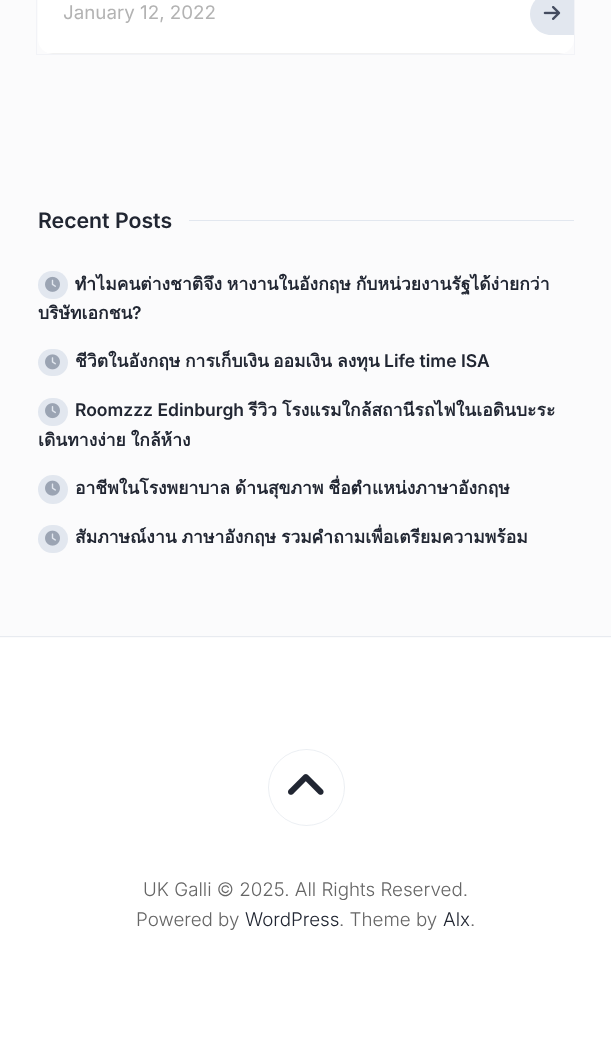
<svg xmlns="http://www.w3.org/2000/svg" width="611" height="1050">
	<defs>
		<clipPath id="clip1"><rect x="38" y="-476" width="536" height="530" rx="15" /></clipPath>
	</defs>
	<rect width="100%" height="100%" fill="#FBFBFC" />
	<rect x="36.5" y="-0.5" width="538" height="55" fill="none" stroke="#0E3F7E" stroke-opacity="0.04" />
	<rect x="38" y="-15" width="536" height="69" rx="15" fill="#FFFFFF" />
	<g clip-path="url(#clip1)">
		<rect x="48" y="53" width="516" height="1" fill="#F1F1F1" />
	</g>
	<text x="63" y="19" font-family="Inter" font-size="18.75" fill="#B3B3B3">January 12, 2022</text>
	<path d="M551-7H574V35H551C539.5 35 530 25.5 530 14C530 2.5 539.5-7 551-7Z" fill="#E2E7EF" />
	<image x="543" y="6" width="18" height="14" href="assets/img1.png" />
	<text x="38" y="228" font-family="Inter" font-size="21.25" font-weight="600" fill="#212632">Recent Posts</text>
	<rect x="189" y="220" width="385" height="1" fill="#E2E7EF" />
	<rect x="38" y="271" width="30" height="28" rx="14" fill="#E2E7EF" />
	<image x="45" y="276" width="15" height="16" href="assets/img2.png" />
	<g font-family="Loma" font-size="17.5" font-weight="700" fill="#212632">
		<text x="75" y="290" word-spacing="-1">ทำไมคนต่างชาติจึง หางานในอังกฤษ กับหน่วยงานรัฐได้ง่ายกว่า</text>
		<text x="38" y="319">บริษัทเอกชน</text>
	</g>
	<text x="132" y="319" font-family="Inter" font-size="17.5" font-weight="600" fill="#212632">?</text>
	<rect x="38" y="349" width="30" height="27" rx="13.5" fill="#E2E7EF" />
	<image x="45" y="354" width="15" height="16" href="assets/img3.png" />
	<g font-family="Loma" font-size="17.5" font-weight="700" fill="#212632">
		<text x="75" y="367">ชีวิตในอังกฤษ</text>
		<text x="185" y="367">การเก็บเงิน</text>
		<text x="273" y="367">ออมเงิน</text>
		<text x="337" y="367">ลงทุน</text>
	</g>
	<text x="384" y="367" font-family="Inter" font-size="17.5" font-weight="600" fill="#212632">Life time ISA</text>
	<rect x="38" y="398" width="30" height="28" rx="14" fill="#E2E7EF" />
	<image x="45" y="403" width="15" height="16" href="assets/img4.png" />
	<text x="75" y="416" font-family="Inter" font-size="17.5" font-weight="600" fill="#212632">Roomzzz Edinburgh</text>
	<g font-family="Loma" font-size="17.5" font-weight="700" fill="#212632">
		<text x="248" y="416">รีวิว</text>
		<text x="282" y="416">โรงแรมใกล้สถานีรถไฟในเอดินบะระ</text>
		<text x="38" y="446" word-spacing="-1">เดินทางง่าย ใกล้ห้าง</text>
	</g>
	<rect x="38" y="475" width="30" height="29" rx="14.5" fill="#E2E7EF" />
	<image x="45" y="480" width="15" height="16" href="assets/img5.png" />
	<text x="75" y="494" word-spacing="-1" font-family="Loma" font-size="17.5" font-weight="700" fill="#212632">อาชีพในโรงพยาบาล ด้านสุขภาพ ชื่อตำแหน่งภาษาอังกฤษ</text>
	<rect x="38" y="525" width="30" height="28" rx="14" fill="#E2E7EF" />
	<image x="45" y="530" width="15" height="16" href="assets/img5.png" />
	<text x="75" y="543" word-spacing="-1" font-family="Loma" font-size="17.5" font-weight="700" fill="#212632">สัมภาษณ์งาน ภาษาอังกฤษ รวมคำถามเพื่อเตรียมความพร้อม</text>
	<rect x="-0.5" y="636.5" width="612" height="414" fill="none" stroke="#E8EBF0" />
	<rect x="0" y="638" width="611" height="412" fill="#FFFFFF" />
	<circle cx="306.5" cy="787.5" r="38" fill="none" stroke="#123769" stroke-opacity="0.08" />
	<image x="288" y="774" width="36" height="21" href="assets/img6.png" />
	<g font-family="Inter" font-size="18.75" font-weight="300" fill="#666666">
		<text x="143" y="896">UK Galli © 2025. All Rights Reserved.</text>
		<text x="136" y="926">Powered by</text>
	</g>
	<text x="245" y="926" font-family="Inter" font-size="18.75" font-weight="300" fill="#212632">WordPress</text>
	<text x="339" y="926" font-family="Inter" font-size="18.75" font-weight="300" fill="#666666">. Theme by</text>
	<text x="443" y="926" font-family="Inter" font-size="18.75" font-weight="300" fill="#212632">Alx</text>
	<text x="470" y="926" font-family="Inter" font-size="18.75" font-weight="300" fill="#666666">.</text>
</svg>
